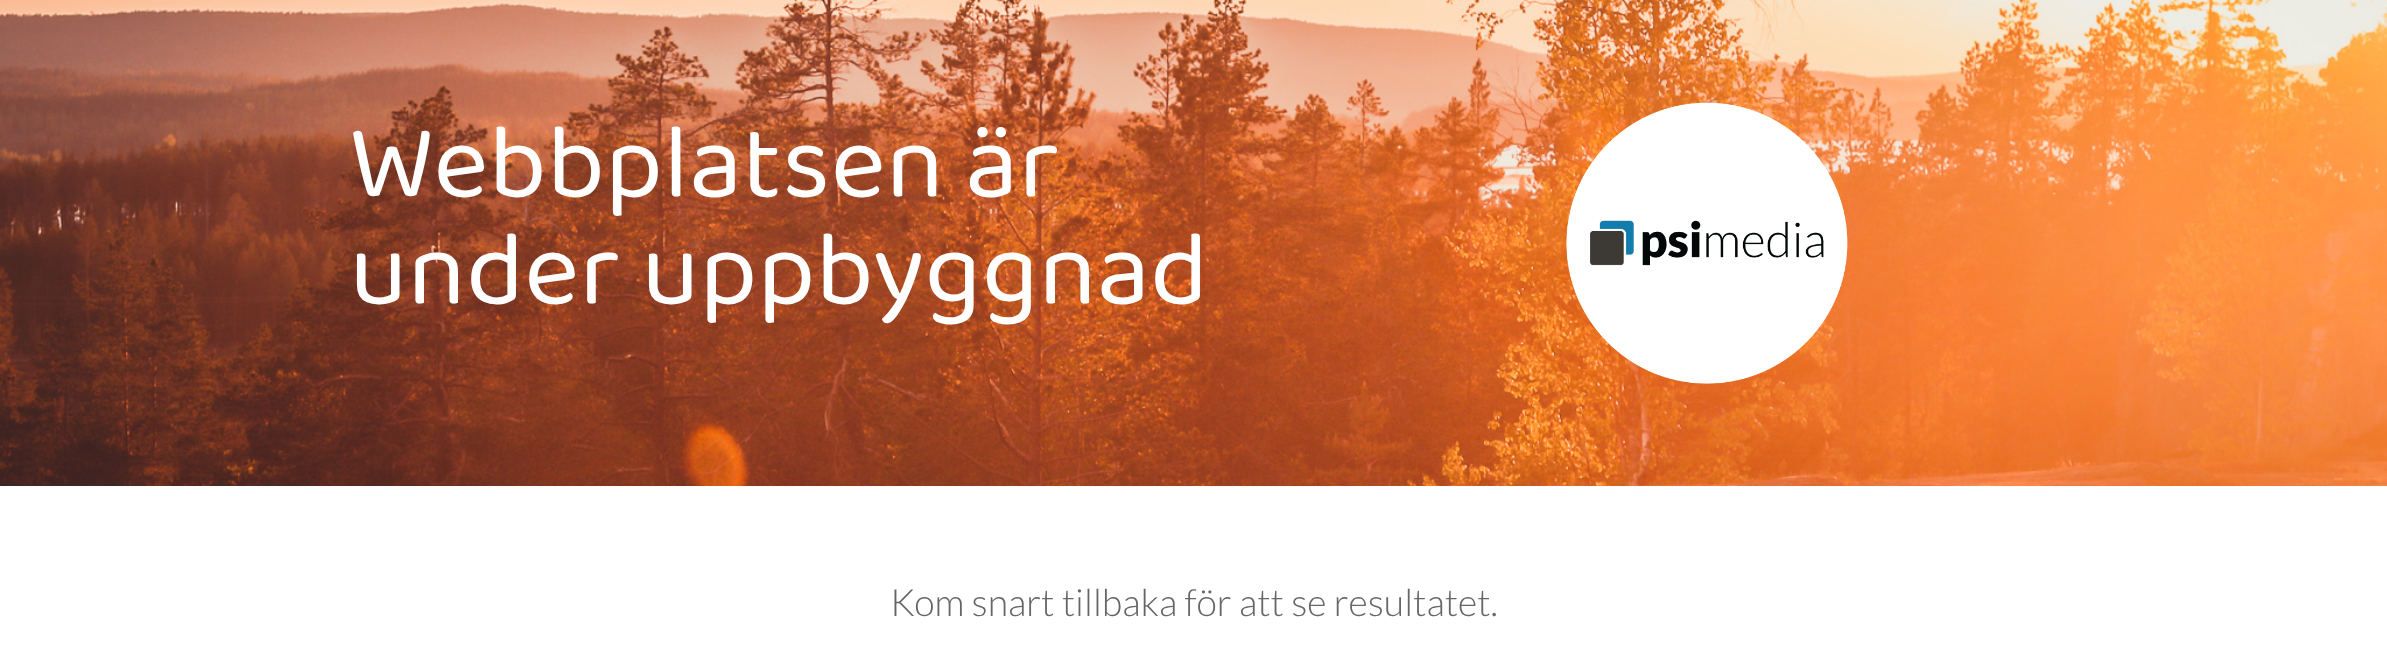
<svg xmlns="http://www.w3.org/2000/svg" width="2387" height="661">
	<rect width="100%" height="100%" fill="#FFFFFF" />
	<image x="0" y="0" width="2387" height="486" href="assets/img1.png" />
	<g font-family="'Baloo 2'" font-size="106.25" fill="#FFFFFF">
		<text x="349" y="196">Webbplatsen är</text>
		<text x="349" y="303">under uppbyggnad</text>
	</g>
	<image x="1566" y="102" width="282" height="282" href="assets/img2.png" />
	<text x="890" y="616" font-family="Lato" font-size="37.5" font-weight="300" fill="#666666">Kom snart tillbaka för att se resultatet.</text>
</svg>
